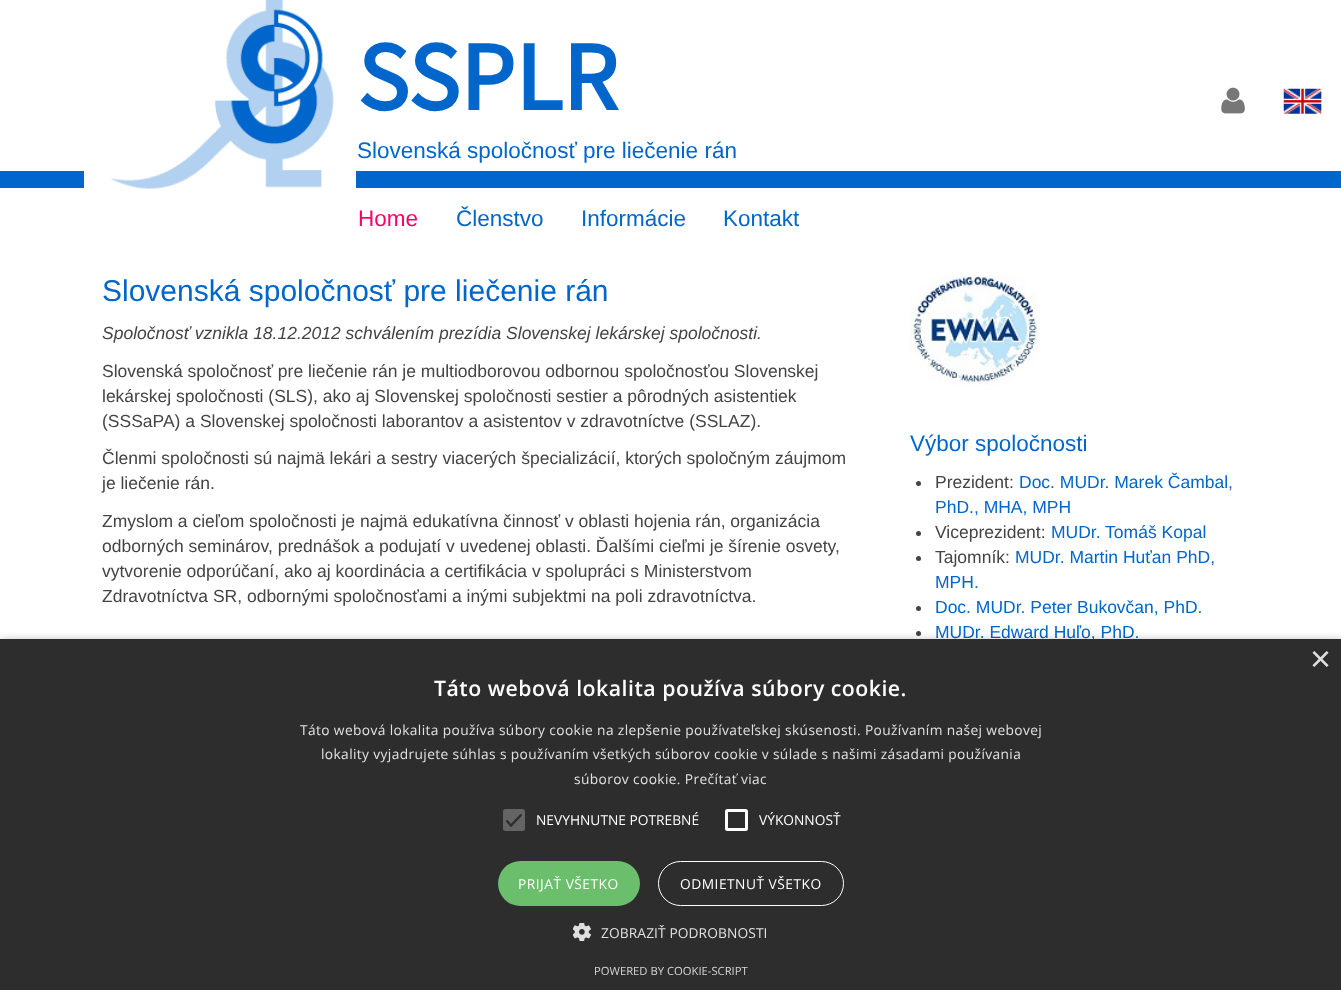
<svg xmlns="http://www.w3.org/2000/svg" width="1341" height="990">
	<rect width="100%" height="100%" fill="#FFFFFF" />
	<rect x="0" y="171" width="1341" height="17" fill="#0066CC" />
	<rect x="84" y="171" width="272" height="17" fill="#FFFFFF" />
	<image x="110" y="0" width="224" height="189" href="assets/img1.png" />
	<text x="357" y="110" font-family="Source Sans Pro" font-size="97.5" font-weight="700" fill="#0066CC">SSPLR</text>
	<text x="357" y="158" font-family="Liberation Sans" font-size="22.5" fill="#0066CC">Slovenská spoločnosť pre liečenie rán</text>
	<image x="1221" y="87" width="24" height="27" href="assets/img2.png" />
	<image x="1283" y="88" width="39" height="26" href="assets/img3.png" />
	<text x="358" y="226" font-family="Liberation Sans" font-size="22.5" fill="#FF0066">Home</text>
	<g font-family="Liberation Sans" font-size="22.5" fill="#0066CC">
		<text x="456" y="226">Členstvo</text>
		<text x="581" y="226">Informácie</text>
		<text x="723" y="226">Kontakt</text>
	</g>
	<text x="102" y="301" font-family="Liberation Sans" font-size="30" fill="#0066CC">Slovenská spoločnosť pre liečenie rán</text>
	<text x="102" y="339" font-family="Liberation Sans" font-size="17.5" font-style="italic" fill="#444444">Spoločnosť vznikla 18.12.2012 schválením prezídia Slovenskej lekárskej spoločnosti.</text>
	<g font-family="Liberation Sans" font-size="17.5" fill="#444444">
		<text x="102" y="377">Slovenská spoločnosť pre liečenie rán je multiodborovou odbornou spoločnosťou Slovenskej</text>
		<text x="102" y="402">lekárskej spoločnosti (SLS), ako aj Slovenskej spoločnosti sestier a pôrodných asistentiek</text>
		<text x="102" y="427">(SSSaPA) a Slovenskej spoločnosti laborantov a asistentov v zdravotníctve (SSLAZ).</text>
		<text x="102" y="464">Členmi spoločnosti sú najmä lekári a sestry viacerých špecializácií, ktorých spoločným záujmom</text>
		<text x="102" y="489">je liečenie rán.</text>
		<text x="102" y="527">Zmyslom a cieľom spoločnosti je najmä edukatívna činnosť v oblasti hojenia rán, organizácia</text>
		<text x="102" y="552">odborných seminárov, prednášok a podujatí v uvedenej oblasti. Ďalšími cieľmi je šírenie osvety,</text>
		<text x="102" y="577">vytvorenie odporúčaní, ako aj koordinácia a certifikácia v spolupráci s Ministerstvom</text>
		<text x="102" y="602">Zdravotníctva SR, odbornými spoločnosťami a inými subjektmi na poli zdravotníctva.</text>
	</g>
	<image x="910" y="275" width="130" height="110" href="assets/img4.png" />
	<text x="910" y="451" font-family="Liberation Sans" font-size="22.5" fill="#0066CC">Výbor spoločnosti</text>
	<circle cx="918.5" cy="483.5" r="2.5" fill="#444444" />
	<text x="935" y="488" font-family="Liberation Sans" font-size="17.5" fill="#444444">Prezident:</text>
	<g font-family="Liberation Sans" font-size="17.5" fill="#0066CC">
		<text x="1019" y="488">Doc. MUDr. Marek Čambal,</text>
		<text x="935" y="513">PhD., MHA, MPH</text>
	</g>
	<circle cx="918.5" cy="533.5" r="2.5" fill="#444444" />
	<text x="935" y="538" font-family="Liberation Sans" font-size="17.5" fill="#444444">Viceprezident:</text>
	<text x="1051" y="538" font-family="Liberation Sans" font-size="17.5" fill="#0066CC">MUDr. Tomáš Kopal</text>
	<circle cx="918.5" cy="558.5" r="2.5" fill="#444444" />
	<text x="935" y="563" font-family="Liberation Sans" font-size="17.5" fill="#444444">Tajomník:</text>
	<g font-family="Liberation Sans" font-size="17.5" fill="#0066CC">
		<text x="1015" y="563">MUDr. Martin Huťan PhD,</text>
		<text x="935" y="588">MPH.</text>
	</g>
	<circle cx="918.5" cy="608.5" r="2.5" fill="#444444" />
	<text x="935" y="613" font-family="Liberation Sans" font-size="17.5" fill="#0066CC">Doc. MUDr. Peter Bukovčan, PhD.</text>
	<circle cx="918.5" cy="633.5" r="2.5" fill="#444444" />
	<text x="935" y="638" font-family="Liberation Sans" font-size="17.5" fill="#0066CC">MUDr. Edward Huľo, PhD.</text>
	<rect x="1" y="641" width="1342" height="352" fill="#000000" fill-opacity="0.35" filter="blur(5px)" />
	<rect x="0" y="639" width="1341" height="351" fill="#2D2D2D" />
	<text x="1310" y="671" font-family="Liberation Sans" font-size="36" fill="#E0E0E0">×</text>
	<text x="434" y="696" font-family="Open Sans" font-size="21.25" font-weight="600" letter-spacing="0.5" fill="#FFFFFF">Táto webová lokalita používa súbory cookie.</text>
	<g font-family="Open Sans" font-size="13.75" letter-spacing="0.38" fill="#E0E0E0">
		<text x="300" y="735">Táto webová lokalita používa súbory cookie na zlepšenie používateľskej skúsenosti. Používaním našej webovej</text>
		<text x="321" y="759">lokality vyjadrujete súhlas s používaním všetkých súborov cookie v súlade s našimi zásadami používania</text>
		<text x="574" y="784">súborov cookie. Prečítať viac</text>
	</g>
	<rect x="503" y="809" width="22" height="22" rx="2.5" fill="#646464" />
	<path d="M506.5 820.5L511 825.5L521.5 814.5" fill="none" stroke="#2D2D2D" stroke-width="2.3" />
	<text x="536" y="825" font-family="Open Sans" font-size="13.75" fill="#FFFFFF">NEVYHNUTNE POTREBNÉ</text>
	<rect x="726.5" y="810.5" width="20" height="19" rx="1" fill="none" stroke="#FFFFFF" stroke-width="3" />
	<text x="759" y="825" font-family="Open Sans" font-size="13.75" fill="#FFFFFF">VÝKONNOSŤ</text>
	<rect x="498" y="861" width="142" height="45" rx="22.5" fill="#6BBE6B" />
	<text x="518" y="889" font-family="Open Sans" font-size="13.75" letter-spacing="0.5" fill="#FFFFFF">PRIJAŤ VŠETKO</text>
	<rect x="658.5" y="861.5" width="185" height="44" rx="22" fill="none" stroke="#FFFFFF" />
	<text x="680" y="889" font-family="Open Sans" font-size="13.75" letter-spacing="0.5" fill="#FFFFFF">ODMIETNUŤ VŠETKO</text>
	<image x="573" y="923" width="18" height="18" href="assets/img5.png" />
	<text x="601" y="938" font-family="Open Sans" font-size="13.75" letter-spacing="0.1" fill="#E0E0E0">ZOBRAZIŤ PODROBNOSTI</text>
	<text x="594" y="975" font-family="Open Sans" font-size="11.25" fill="#D5D5D5">POWERED BY COOKIE-SCRIPT</text>
</svg>
